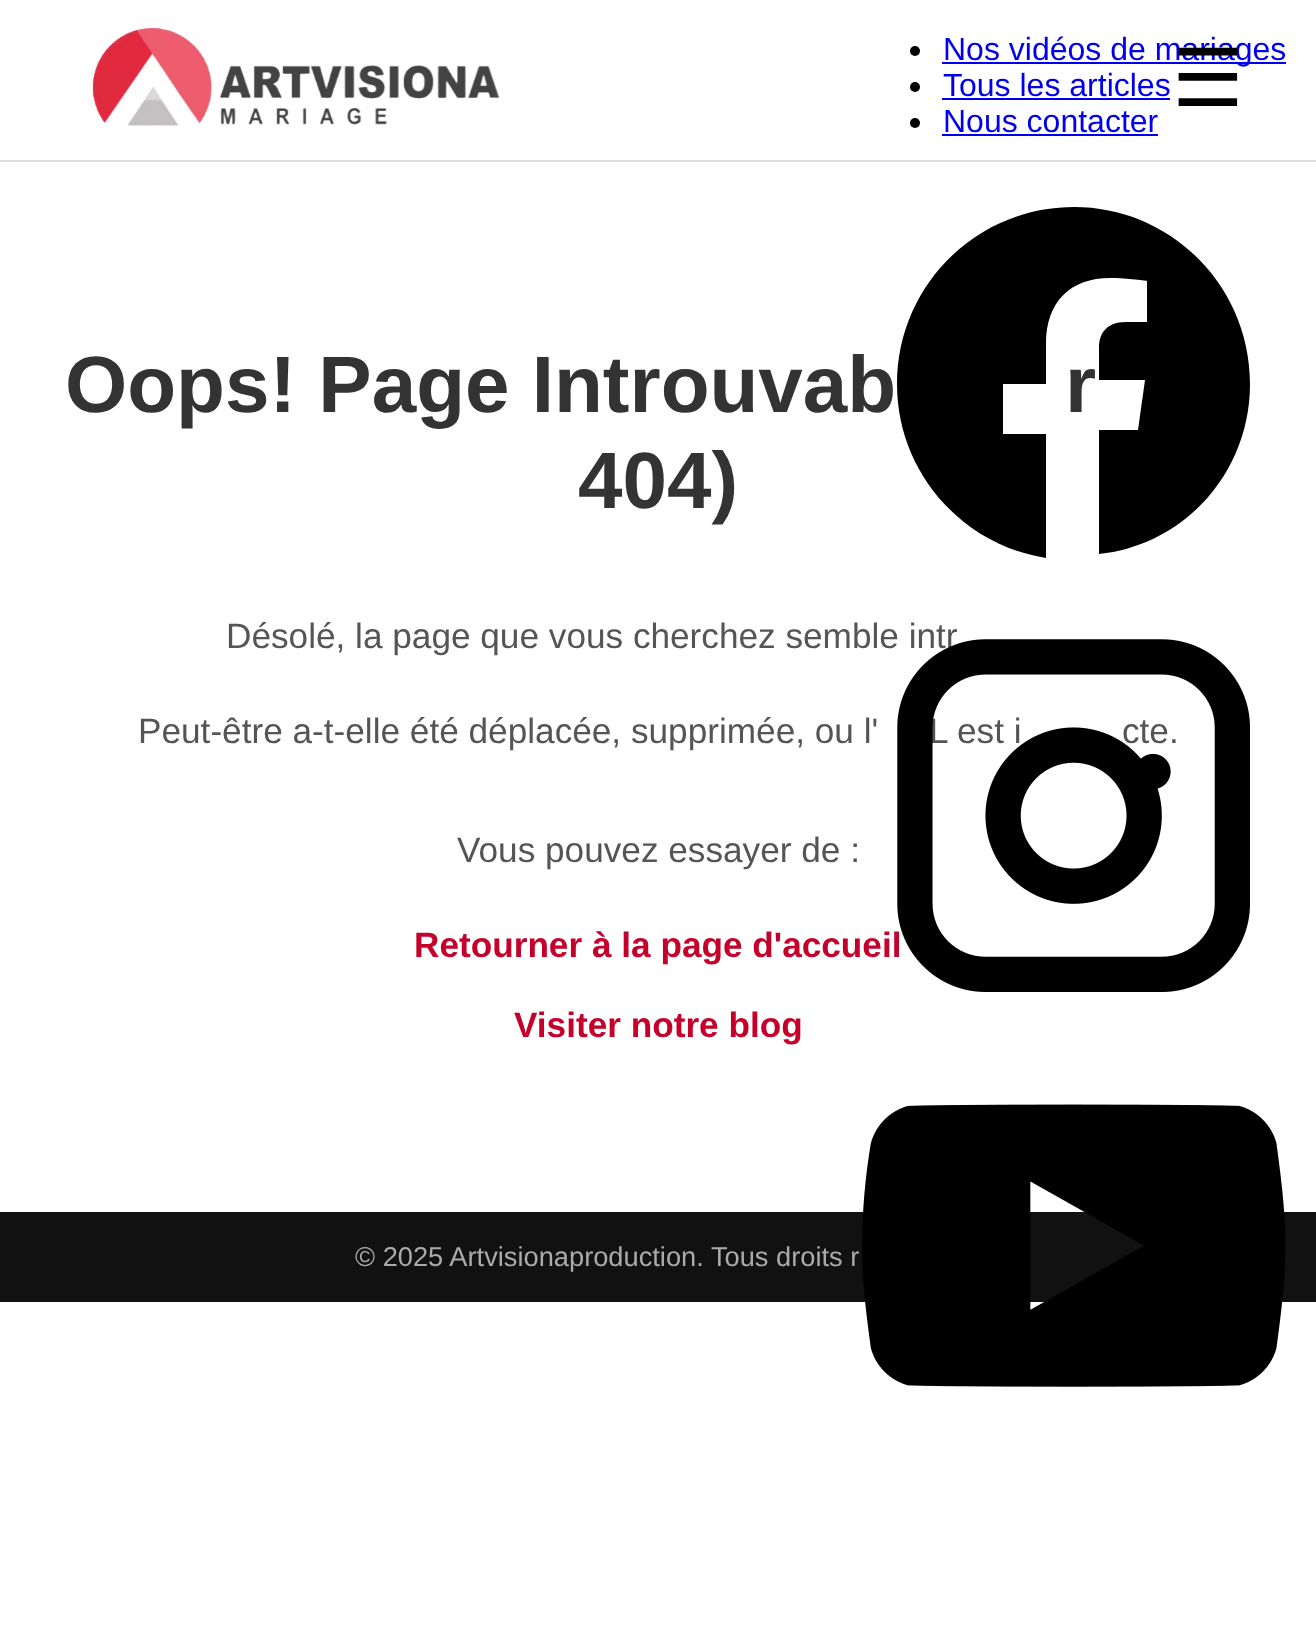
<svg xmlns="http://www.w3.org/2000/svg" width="1316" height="1633">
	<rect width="100%" height="100%" fill="#FFFFFF" />
	<rect x="0" y="160" width="1316" height="2" fill="#DDDDDD" />
	<image x="92" y="27" width="408" height="99" href="assets/img1.png" />
	<circle cx="915" cy="51" r="5" fill="#000000" />
	<rect x="942" y="62" width="344" height="2" fill="#0000EE" />
	<text x="943" y="60" font-family="Liberation Sans" font-size="32" fill="#0000EE">Nos vidéos de mariages</text>
	<circle cx="915" cy="87" r="5" fill="#000000" />
	<text x="943" y="96" font-family="Liberation Sans" font-size="32" fill="#0000EE">Tous les articles</text>
	<rect x="942" y="98" width="228" height="2" fill="#0000EE" />
	<circle cx="915" cy="123" r="5" fill="#000000" />
	<text x="943" y="132" font-family="Liberation Sans" font-size="32" fill="#0000EE">Nous contacter</text>
	<rect x="942" y="134" width="216" height="2" fill="#0000EE" />
	<text x="1065" y="412" font-family="Liberation Sans" font-size="80" font-weight="700" fill="#333333">r</text>
	<path d="M1250 384C1250 286 1171 207 1074 207C976 207 897 286 897 384C897 472 962 545 1046 558V434H1003V384H1046V344C1046 301 1071 278 1110 278C1128 278 1147 281 1147 281V322H1126C1105 322 1099 335 1099 348V380H1145L1138 430H1099V554C1185 545 1250 472 1250 384Z" fill="#000000" />
	<g font-family="Liberation Sans" font-size="35.2" fill="#555555">
		<text x="226" y="648">Désolé, la page que vous cherchez semble intr</text>
		<text x="929" y="743">L est i</text>
		<text x="1122" y="743">cte.</text>
	</g>
	<text x="414" y="957" font-family="Liberation Sans" font-size="35.2" font-weight="700" fill="#C4002B">Retourner à la page d'accueil</text>
	<image x="897" y="639" width="353" height="353" href="assets/img2.png" />
	<rect x="0" y="1212" width="1316" height="90" fill="#111111" />
	<image x="862" y="1104" width="424" height="283" href="assets/img3.png" />
	<text x="1172" y="106" font-family="DejaVu Sans" font-size="80" fill="#000000">☰</text>
	<g font-family="Liberation Sans" font-size="80" font-weight="700" fill="#333333">
		<text x="65" y="412">Oops! Page Introuvab</text>
		<text x="578" y="508">404)</text>
	</g>
	<g font-family="Liberation Sans" font-size="35.2" fill="#555555">
		<text x="138" y="743">Peut-être a-t-elle été déplacée, supprimée, ou l'</text>
		<text x="457" y="862">Vous pouvez essayer de :</text>
	</g>
	<text x="514" y="1037" font-family="Liberation Sans" font-size="35.2" font-weight="700" fill="#C4002B">Visiter notre blog</text>
	<text x="355" y="1266" font-family="Liberation Sans" font-size="27.25" fill="#AAAAAA">© 2025 Artvisionaproduction. Tous droits r</text>
</svg>
